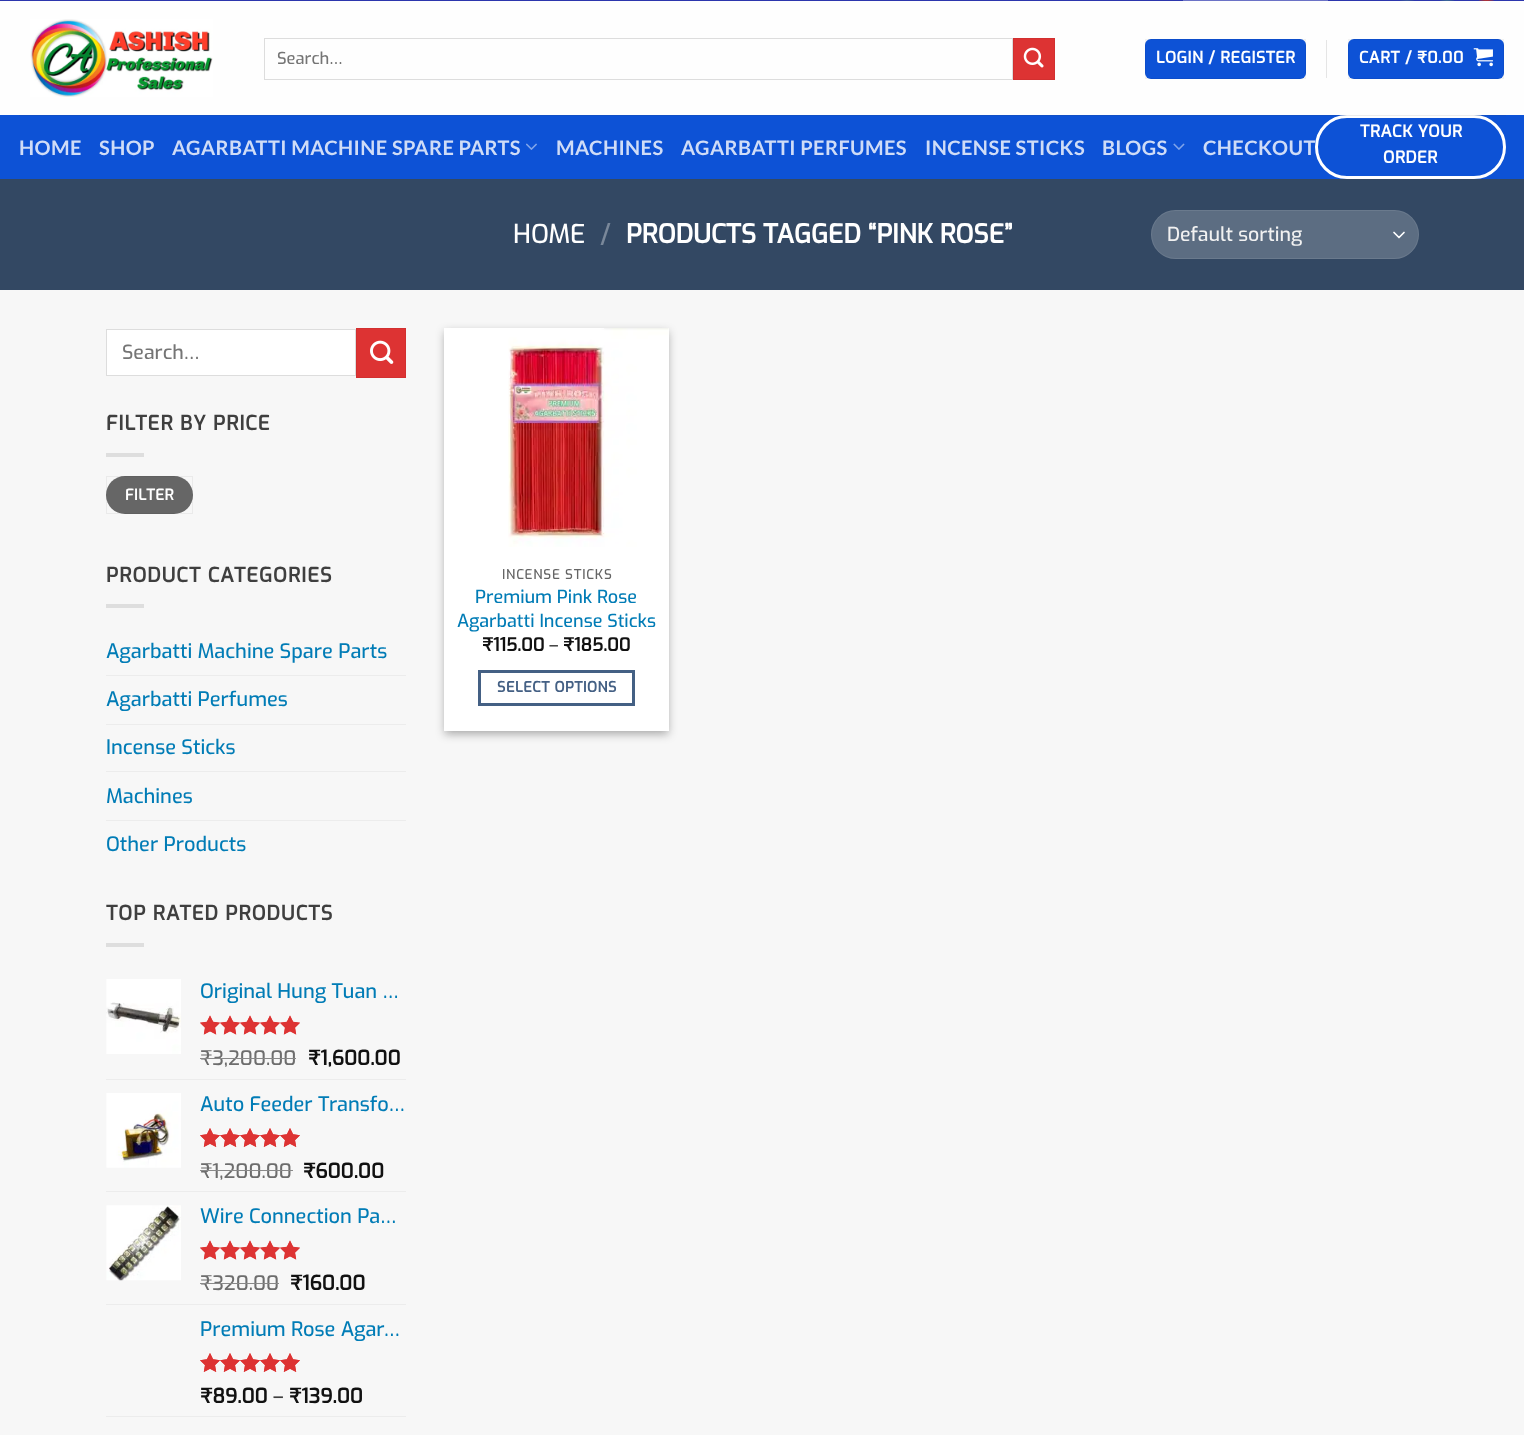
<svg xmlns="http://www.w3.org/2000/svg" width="1524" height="1435">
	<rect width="100%" height="100%" fill="#F7F7F7" />
	<rect x="0" y="0" width="1524" height="1" fill="#2C36AD" />
	<rect x="1183" y="0" width="145" height="1" fill="#6B72C6" />
	<rect x="1389.5" y="-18.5" width="35" height="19" rx="17.5" fill="none" stroke="#3A589D" />
	<rect x="1429.5" y="-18.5" width="35" height="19" rx="17.5" fill="none" stroke="#3B6994" />
	<rect x="1468.5" y="-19.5" width="36" height="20" rx="18" fill="none" stroke="#C33223" />
	<rect x="0" y="1" width="1524" height="114" fill="#FEFEFE" />
	<image x="30" y="19" width="183" height="78" href="assets/img1.png" />
	<rect x="264.5" y="38.5" width="748" height="41" fill="none" stroke="#DDDDDD" />
	<text x="277" y="64" font-family="Exo" font-size="16.5" font-weight="500" fill="#757575">Search…</text>
	<rect x="1013.5" y="38.5" width="41" height="41" fill="#DD3333" stroke="#D23030" />
	<image x="1023" y="47" width="21" height="21" href="assets/img2.png" />
	<rect x="1145" y="39" width="161" height="40" rx="6" fill="#0D52D6" />
	<rect x="1145.5" y="39.5" width="160" height="39" fill="none" stroke="#000000" stroke-opacity="0.05" />
	<text x="1156" y="63" font-family="Exo" font-size="16" font-weight="700" letter-spacing="0.5" fill="#FFFFFF">LOGIN / REGISTER</text>
	<rect x="1326" y="40" width="1" height="38" fill="#E5E5E5" />
	<rect x="1348" y="39" width="156" height="40" rx="6" fill="#0D52D6" />
	<rect x="1348.5" y="39.5" width="155" height="39" fill="none" stroke="#000000" stroke-opacity="0.05" />
	<text x="1359" y="63" font-family="Exo" font-size="16" font-weight="700" letter-spacing="0.5" fill="#FFFFFF">CART / ₹0.00</text>
	<image x="1473" y="48" width="20" height="19" href="assets/img3.png" />
	<rect x="0" y="115" width="1524" height="64" fill="#0D52D6" />
	<rect x="1316.5" y="116.5" width="188" height="61" rx="30.5" fill="none" stroke="#FFFFFF" stroke-width="3" />
	<rect x="19" y="115" width="1487" height="1" fill="#3F3F3F" fill-opacity="0.1" />
	<g font-family="Lato" font-size="20" font-weight="700" letter-spacing="0.4" fill="#CFDCF7">
		<text x="19" y="155">HOME</text>
		<text x="99" y="155">SHOP</text>
		<text x="172" y="155">AGARBATTI MACHINE SPARE PARTS</text>
	</g>
	<image x="526" y="143" width="11" height="7" href="assets/img4.png" />
	<g font-family="Lato" font-size="20" font-weight="700" letter-spacing="0.4" fill="#CFDCF7">
		<text x="556" y="155">MACHINES</text>
		<text x="681" y="155">AGARBATTI PERFUMES</text>
		<text x="925" y="155">INCENSE STICKS</text>
		<text x="1102" y="155">BLOGS</text>
	</g>
	<image x="1173" y="143" width="12" height="7" href="assets/img5.png" />
	<text x="1203" y="155" font-family="Lato" font-size="20" font-weight="700" letter-spacing="0.4" fill="#CFDCF7">CHECKOUT</text>
	<g font-family="Exo" font-size="16.5" font-weight="700" letter-spacing="0.5" fill="#FFFFFF">
		<text x="1360" y="137">TRACK YOUR</text>
		<text x="1383" y="163">ORDER</text>
	</g>
	<rect x="0" y="179" width="1524" height="111" fill="#334863" />
	<text x="513" y="243" font-family="Exo" font-size="26" font-weight="500" fill="#FFFFFF">HOME</text>
	<text x="600" y="243" font-family="Exo" font-size="26" font-weight="500" fill="#7A889A">/</text>
	<text x="626" y="243" font-family="Exo" font-size="26" font-weight="700" fill="#FFFFFF">PRODUCTS TAGGED “PINK ROSE”</text>
	<rect x="1151" y="210" width="268" height="49" rx="24.5" fill="#5C6D82" />
	<path d="M1394 232.5L1399 237.5L1404 232.5" fill="none" stroke="#FFFFFF" stroke-width="1.7" stroke-linecap="round" stroke-linejoin="round" />
	<rect x="1151.5" y="210.5" width="267" height="48" rx="24" fill="none" stroke="#FFFFFF" stroke-opacity="0.09" />
	<text x="1167" y="241" font-family="Exo" font-size="19.5" font-weight="500" fill="#F1F1F1">Default sorting</text>
	<rect x="106.5" y="329.5" width="249" height="46" fill="#FFFFFF" stroke="#DDDDDD" />
	<text x="122" y="359" font-family="Exo" font-size="19.5" font-weight="500" fill="#757575">Search…</text>
	<rect x="356.5" y="328.5" width="49" height="49" fill="#DD3333" stroke="#D23030" />
	<image x="370" y="340" width="24" height="24" href="assets/img6.png" />
	<text x="106" y="430" font-family="Exo" font-size="20" font-weight="700" letter-spacing="1" fill="#3F3F3F">FILTER BY PRICE</text>
	<rect x="106" y="453" width="38" height="4" fill="#DEDEDE" />
	<rect x="106" y="476" width="87" height="38" rx="19" fill="#666666" />
	<rect x="106.5" y="476.5" width="86" height="37" fill="none" stroke="#000000" stroke-opacity="0.05" />
	<text x="125" y="500" font-family="Exo" font-size="15" font-weight="700" letter-spacing="0.5" fill="#FFFFFF">FILTER</text>
	<text x="106" y="582" font-family="Exo" font-size="20" font-weight="700" letter-spacing="1" fill="#3F3F3F">PRODUCT CATEGORIES</text>
	<rect x="106" y="604" width="38" height="4" fill="#DEDEDE" />
	<text x="106" y="658" font-family="Exo" font-size="20" font-weight="500" fill="#017CB6">Agarbatti Machine Spare Parts</text>
	<rect x="106" y="675" width="300" height="1" fill="#ECECEC" />
	<text x="106" y="706" font-family="Exo" font-size="20" font-weight="500" fill="#017CB6">Agarbatti Perfumes</text>
	<rect x="106" y="724" width="300" height="1" fill="#ECECEC" />
	<text x="106" y="754" font-family="Exo" font-size="20" font-weight="500" fill="#017CB6">Incense Sticks</text>
	<rect x="106" y="771" width="300" height="1" fill="#ECECEC" />
	<text x="106" y="803" font-family="Exo" font-size="20" font-weight="500" fill="#017CB6">Machines</text>
	<rect x="106" y="820" width="300" height="1" fill="#ECECEC" />
	<text x="106" y="851" font-family="Exo" font-size="20" font-weight="500" fill="#017CB6">Other Products</text>
	<text x="106" y="920" font-family="Exo" font-size="20" font-weight="700" letter-spacing="1" fill="#3F3F3F">TOP RATED PRODUCTS</text>
	<rect x="106" y="943" width="38" height="4" fill="#DEDEDE" />
	<image x="106" y="979" width="75" height="75" href="assets/img7.png" />
	<text x="200" y="998" font-family="Exo" font-size="20" font-weight="500" fill="#017CB6">Original Hung Tuan …</text>
	<image x="200" y="1015" width="100" height="20" href="assets/img8.png" />
	<image x="200" y="1015" width="100" height="20" href="assets/img9.png" />
	<text x="200" y="1065" font-family="Exo" font-size="20" font-weight="500" fill="#6D6D6D">₹3,200.00</text>
	<rect x="200" y="1058" width="96" height="1" fill="#898989" />
	<text x="308" y="1065" font-family="Exo" font-size="20" font-weight="700" fill="#111111">₹1,600.00</text>
	<rect x="106" y="1079" width="300" height="1" fill="#ECECEC" />
	<image x="106" y="1093" width="75" height="75" href="assets/img10.png" />
	<text x="200" y="1111" font-family="Exo" font-size="20" font-weight="500" fill="#017CB6">Auto Feeder Transfo…</text>
	<image x="200" y="1128" width="100" height="19" href="assets/img11.png" />
	<image x="200" y="1128" width="100" height="19" href="assets/img12.png" />
	<text x="200" y="1178" font-family="Exo" font-size="20" font-weight="500" fill="#6D6D6D">₹</text>
	<rect x="200" y="1170" width="13" height="1" fill="#898989" />
	<text x="212" y="1178" font-family="Exo" font-size="20" font-weight="500" fill="#6D6D6D">1,200.00</text>
	<rect x="213" y="1170" width="80" height="1" fill="#898989" />
	<text x="303" y="1178" font-family="Exo" font-size="20" font-weight="700" fill="#111111">₹600.00</text>
	<rect x="106" y="1191" width="300" height="1" fill="#ECECEC" />
	<image x="106" y="1205" width="75" height="76" href="assets/img13.png" />
	<text x="200" y="1223" font-family="Exo" font-size="20" font-weight="500" fill="#017CB6">Wire Connection Pa…</text>
	<image x="200" y="1240" width="100" height="20" href="assets/img8.png" />
	<image x="200" y="1240" width="100" height="20" href="assets/img9.png" />
	<text x="200" y="1290" font-family="Exo" font-size="20" font-weight="500" fill="#6D6D6D">₹320.00</text>
	<rect x="200" y="1283" width="79" height="1" fill="#898989" />
	<text x="290" y="1290" font-family="Exo" font-size="20" font-weight="700" fill="#111111">₹160.00</text>
	<rect x="106" y="1304" width="300" height="1" fill="#ECECEC" />
	<text x="200" y="1336" font-family="Exo" font-size="20" font-weight="500" fill="#017CB6">Premium Rose Agar…</text>
	<image x="200" y="1353" width="100" height="19" href="assets/img11.png" />
	<image x="200" y="1353" width="100" height="19" href="assets/img12.png" />
	<text x="200" y="1403" font-family="Exo" font-size="20" font-weight="700" fill="#111111">₹89.00</text>
	<text x="273" y="1403" font-family="Exo" font-size="20" font-weight="500" fill="#3F3F3F">–</text>
	<text x="289" y="1403" font-family="Exo" font-size="20" font-weight="700" fill="#111111">₹139.00</text>
	<rect x="106" y="1416" width="300" height="1" fill="#ECECEC" />
	<rect x="444" y="331" width="225" height="404" fill="#000000" fill-opacity="0.23" filter="blur(4px)" />
	<rect x="449" y="336" width="215" height="394" fill="#000000" fill-opacity="0.16" filter="blur(4px)" />
	<rect x="444" y="328" width="225" height="403" fill="#FFFFFF" />
	<image x="508" y="328" width="161" height="219" href="assets/img14.png" />
	<text x="502" y="579" font-family="Exo" font-size="13.5" font-weight="500" letter-spacing="0.75" fill="#656565">INCENSE STICKS</text>
	<g font-family="Exo" font-size="18" font-weight="500" fill="#017CB6">
		<text x="475" y="603">Premium Pink Rose</text>
		<text x="457" y="627">Agarbatti Incense Sticks</text>
	</g>
	<text x="482" y="651" font-family="Exo" font-size="18" font-weight="700" fill="#111111">₹115.00</text>
	<text x="549" y="651" font-family="Exo" font-size="18" font-weight="500" fill="#3F3F3F">–</text>
	<text x="563" y="651" font-family="Exo" font-size="18" font-weight="700" fill="#111111">₹185.00</text>
	<rect x="479.5" y="671.5" width="154" height="33" fill="none" stroke="#446084" stroke-width="3" />
	<text x="497" y="692" font-family="Exo" font-size="14.5" font-weight="700" letter-spacing="0.5" fill="#446084">SELECT OPTIONS</text>
</svg>
